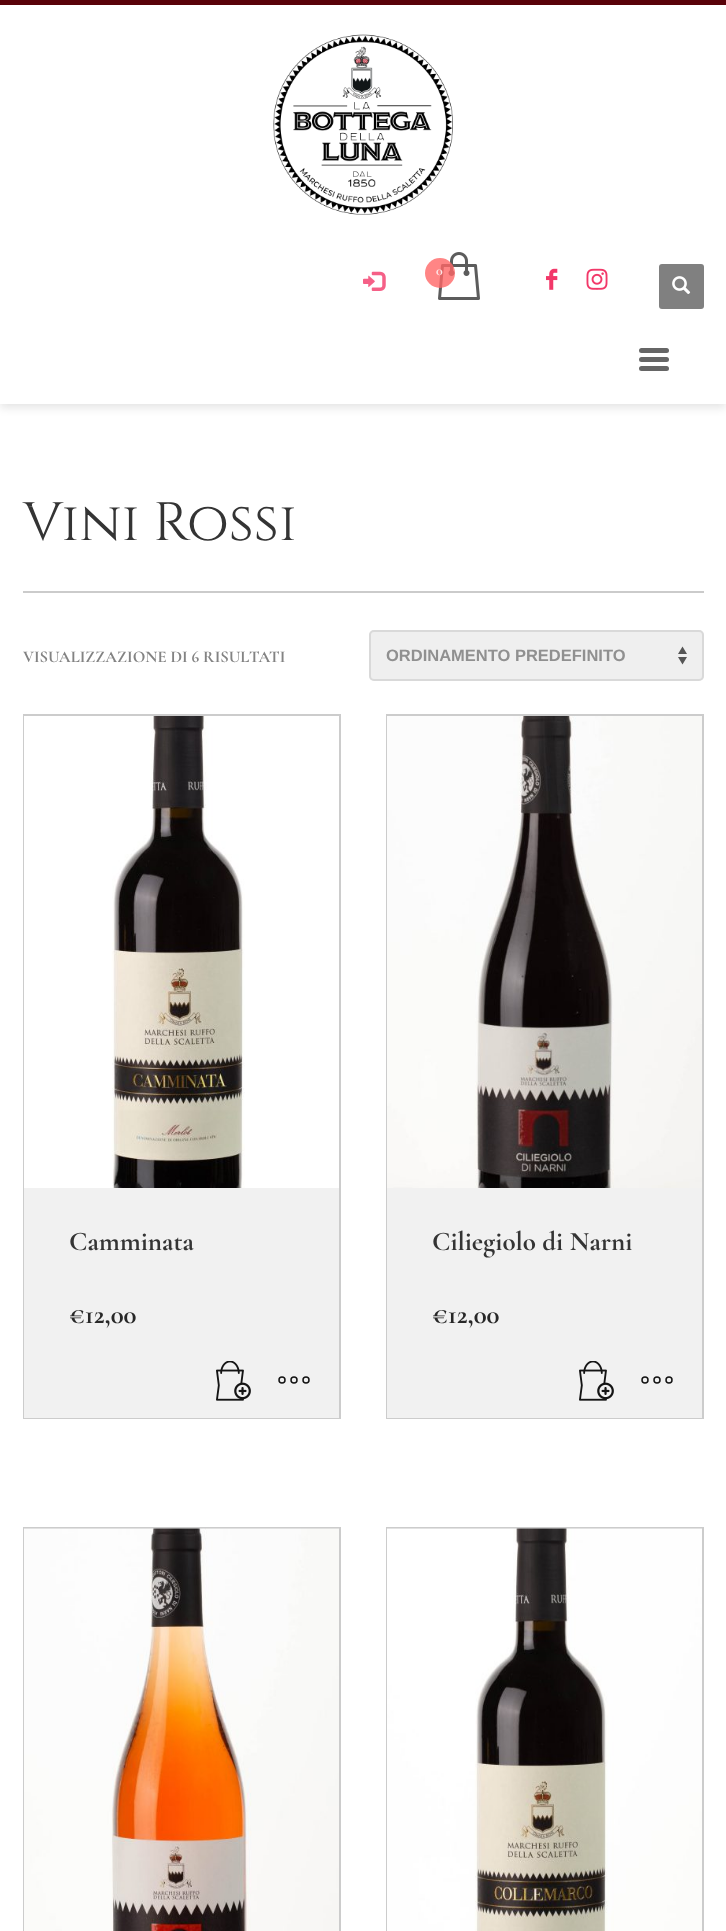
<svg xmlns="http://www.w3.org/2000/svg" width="726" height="1931">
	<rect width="100%" height="100%" fill="#FFFFFF" />
	<rect x="0" y="5" width="726" height="403" fill="#000000" fill-opacity="0.1" filter="blur(4px)" />
	<rect x="0" y="5" width="726" height="399" fill="#FFFFFF" />
	<rect x="0" y="0" width="726" height="5" fill="#590209" />
	<image x="273" y="34" width="180" height="181" href="assets/img1.png" />
	<image x="363" y="271" width="23" height="20" href="assets/img2.png" />
	<image x="438" y="252" width="42" height="48" href="assets/img3.png" />
	<circle cx="440" cy="273" r="15" fill="#FF6666" fill-opacity="0.8" />
	<text x="436" y="275" font-family="Cormorant Garamond" font-size="14" font-weight="700" fill="#FDE5E5">0</text>
	<image x="546" y="268" width="12" height="22" href="assets/img4.png" />
	<image x="586" y="268" width="22" height="22" href="assets/img5.png" />
	<rect x="659" y="264" width="45" height="45" rx="3" fill="#808080" />
	<image x="672" y="276" width="19" height="18" href="assets/img6.png" />
	<rect x="639" y="348" width="30" height="5" rx="2.5" fill="#666666" />
	<rect x="639" y="357" width="30" height="5" rx="2.5" fill="#666666" />
	<rect x="639" y="366" width="30" height="5" rx="2.5" fill="#666666" />
	<rect x="23" y="591" width="681" height="2" fill="#CBCBCB" />
	<text x="23" y="540" font-family="Cinzel" font-size="54" fill="#343434">Vini Rossi</text>
	<text x="23" y="662" font-family="Cormorant Garamond" font-size="16.5" font-weight="700" fill="#838383">VISUALIZZAZIONE DI 6 RISULTATI</text>
	<rect x="369" y="630" width="335" height="51" rx="5" fill="#EFEFEF" />
	<path d="M682.5 646.5L687 654H678ZM682.5 664.5L678 657H687Z" fill="#555555" fill-rule="evenodd" />
	<rect x="370" y="631" width="333" height="49" rx="4" fill="none" stroke="#D9D9D9" stroke-width="2" />
	<text x="386" y="661" font-family="Liberation Sans" font-size="16.5" font-weight="700" fill="#909090">ORDINAMENTO PREDEFINITO</text>
	<rect x="24" y="715" width="316" height="703" fill="none" stroke="#CCCCCC" stroke-width="2" />
	<image x="24" y="716" width="221" height="472" href="assets/img7.png" />
	<rect x="24" y="1188" width="315" height="230" fill="#F1F1F1" />
	<text x="69" y="1250" font-family="Cormorant Garamond" font-size="27" font-weight="700" fill="#343434">Camminata</text>
	<text x="69" y="1323" font-family="Cormorant Garamond" font-size="27" font-weight="700" fill="#282828">€12,00</text>
	<image x="216" y="1361" width="35" height="40" href="assets/img8.png" />
	<circle cx="282" cy="1380" r="3" fill="none" stroke="#141414" stroke-width="1.5" />
	<circle cx="294" cy="1380" r="3" fill="none" stroke="#141414" stroke-width="1.5" />
	<circle cx="306" cy="1380" r="3" fill="none" stroke="#141414" stroke-width="1.5" />
	<rect x="387" y="715" width="316" height="703" fill="none" stroke="#CCCCCC" stroke-width="2" />
	<image x="387" y="716" width="315" height="472" href="assets/img9.png" />
	<rect x="387" y="1188" width="315" height="230" fill="#F1F1F1" />
	<text x="432" y="1250" font-family="Cormorant Garamond" font-size="27" font-weight="700" fill="#343434">Ciliegiolo di Narni</text>
	<text x="432" y="1323" font-family="Cormorant Garamond" font-size="27" font-weight="700" fill="#282828">€12,00</text>
	<image x="579" y="1361" width="35" height="40" href="assets/img8.png" />
	<circle cx="645" cy="1380" r="3" fill="none" stroke="#141414" stroke-width="1.5" />
	<circle cx="657" cy="1380" r="3" fill="none" stroke="#141414" stroke-width="1.5" />
	<circle cx="669" cy="1380" r="3" fill="none" stroke="#141414" stroke-width="1.5" />
	<rect x="24" y="1528" width="316" height="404" fill="none" stroke="#CCCCCC" stroke-width="2" />
	<image x="24" y="1528" width="315" height="403" href="assets/img10.png" />
	<rect x="387" y="1528" width="316" height="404" fill="none" stroke="#CCCCCC" stroke-width="2" />
	<image x="387" y="1528" width="315" height="403" href="assets/img11.png" />
</svg>
